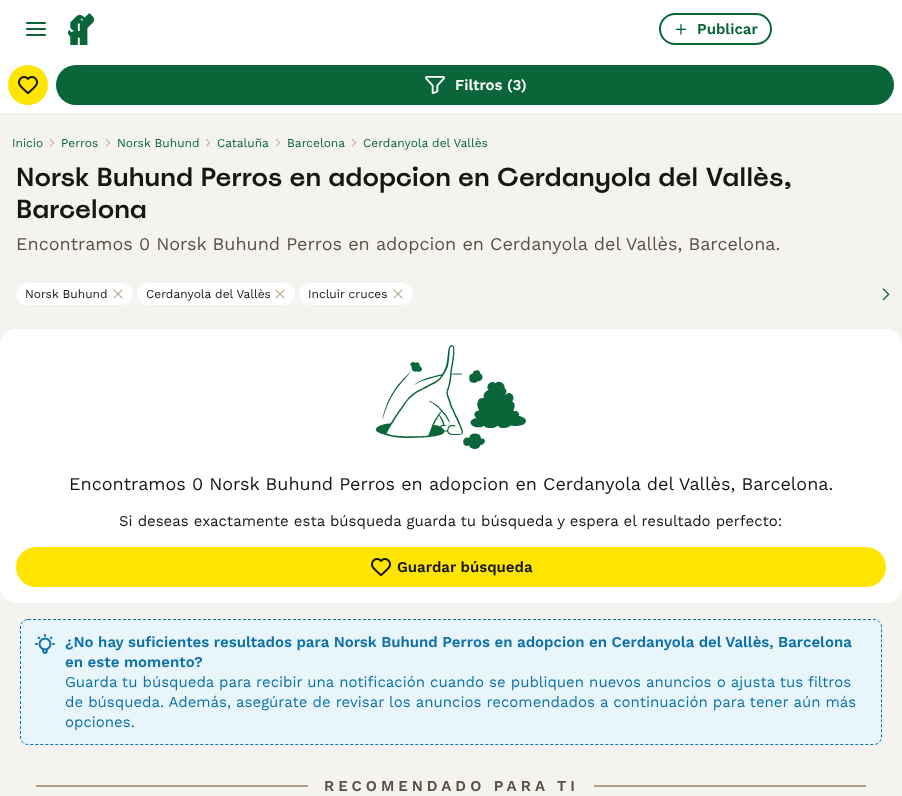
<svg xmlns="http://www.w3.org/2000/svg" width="902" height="796">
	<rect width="100%" height="100%" fill="#F5F3F0" />
	<rect x="0" y="0" width="902" height="113" fill="#FFFFFF" />
	<image x="26" y="22" width="20" height="14" href="assets/img1.png" />
	<image x="68" y="13" width="26" height="32" href="assets/img2.png" />
	<rect x="660" y="14" width="111" height="30" rx="15" fill="none" stroke="#0A6638" stroke-width="2" />
	<image x="675" y="24" width="12" height="11" href="assets/img3.png" />
	<text x="697" y="34" font-family="Work Sans" font-size="15" font-weight="600" fill="#0A6638">Publicar</text>
	<circle cx="28" cy="85" r="20" fill="#FFE500" />
	<image x="18" y="76" width="20" height="18" href="assets/img4.png" />
	<rect x="56" y="65" width="838" height="40" rx="20" fill="#0A6638" />
	<image x="425" y="76" width="20" height="18" href="assets/img5.png" />
	<text x="455" y="90" font-family="Work Sans" font-size="15" font-weight="600" fill="#FFFFFF">Filtros (3)</text>
	<text x="12" y="147" font-family="Work Sans" font-size="12" fill="#0A6638">Inicio</text>
	<image x="50" y="139" width="4" height="8" href="assets/img6.png" />
	<text x="61" y="147" font-family="Work Sans" font-size="12" fill="#0A6638">Perros</text>
	<image x="106" y="139" width="4" height="8" href="assets/img6.png" />
	<text x="117" y="147" font-family="Work Sans" font-size="12" fill="#0A6638">Norsk Buhund</text>
	<image x="206" y="139" width="4" height="8" href="assets/img6.png" />
	<text x="217" y="147" font-family="Work Sans" font-size="12" fill="#0A6638">Cataluña</text>
	<image x="276" y="139" width="4" height="8" href="assets/img6.png" />
	<text x="287" y="147" font-family="Work Sans" font-size="12" fill="#0A6638">Barcelona</text>
	<image x="352" y="139" width="4" height="8" href="assets/img6.png" />
	<text x="363" y="147" font-family="Work Sans" font-size="12" fill="#0A6638">Cerdanyola del Vallès</text>
	<g font-family="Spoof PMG" font-size="26" font-weight="500" fill="#171711">
		<text x="16" y="186">Norsk Buhund Perros en adopcion en Cerdanyola del Vallès,</text>
		<text x="16" y="218">Barcelona</text>
	</g>
	<text x="16" y="250" font-family="Work Sans" font-size="18" fill="#595143">Encontramos 0 Norsk Buhund Perros en adopcion en Cerdanyola del Vallès, Barcelona.</text>
	<rect x="16.5" y="283.5" width="116" height="21" rx="10.5" fill="#FFFFFF" stroke="#FFFFFF" />
	<text x="25" y="298" font-family="Work Sans" font-size="12" fill="#171711">Norsk Buhund</text>
	<image x="113" y="289" width="10" height="10" href="assets/img7.png" />
	<rect x="137.5" y="283.5" width="157" height="21" rx="10.5" fill="#FFFFFF" stroke="#FFFFFF" />
	<text x="146" y="298" font-family="Work Sans" font-size="12" fill="#171711">Cerdanyola del Vallès</text>
	<image x="275" y="289" width="10" height="10" href="assets/img7.png" />
	<rect x="299.5" y="283.5" width="113" height="21" rx="10.5" fill="#FFFFFF" stroke="#FFFFFF" />
	<text x="308" y="298" font-family="Work Sans" font-size="12" fill="#171711">Incluir cruces</text>
	<image x="393" y="289" width="10" height="10" href="assets/img7.png" />
	<image x="882" y="288" width="8" height="13" href="assets/img8.png" />
	<rect x="0" y="329" width="902" height="274" rx="16" fill="#FFFFFF" />
	<image x="376" y="345" width="150" height="104" href="assets/img9.png" />
	<text x="69" y="490" font-family="Work Sans" font-size="18" fill="#171711">Encontramos 0 Norsk Buhund Perros en adopcion en Cerdanyola del Vallès, Barcelona.</text>
	<text x="119" y="526" font-family="Work Sans" font-size="15" fill="#171711">Si deseas exactamente esta búsqueda guarda tu búsqueda y espera el resultado perfecto:</text>
	<rect x="16" y="547" width="870" height="40" rx="20" fill="#FFE500" />
	<image x="371" y="558" width="20" height="18" href="assets/img4.png" />
	<text x="397" y="572" font-family="Work Sans" font-size="15" font-weight="600" fill="#171711">Guardar búsqueda</text>
	<rect x="20" y="619" width="862" height="126" rx="8" fill="#E8F6FC" />
	<path d="M28 619.5H874C878 619.5 881.5 623 881.5 627V737C881.5 741 878 744.5 874 744.5H28C24 744.5 20.5 741 20.5 737V627C20.5 623 24 619.5 28 619.5Z" fill="none" stroke="#0D71A8" stroke-dasharray="3 2" />
	<image x="35" y="634" width="20" height="20" href="assets/img10.png" />
	<g font-family="Work Sans" font-size="15" font-weight="600" fill="#0D71A8">
		<text x="65" y="647">¿No hay suficientes resultados para Norsk Buhund Perros en adopcion en Cerdanyola del Vallès, Barcelona</text>
		<text x="65" y="667">en este momento?</text>
	</g>
	<g font-family="Work Sans" font-size="15" fill="#0D71A8">
		<text x="65" y="687">Guarda tu búsqueda para recibir una notificación cuando se publiquen nuevos anuncios o ajusta tus filtros</text>
		<text x="65" y="707">de búsqueda. Además, asegúrate de revisar los anuncios recomendados a continuación para tener aún más</text>
		<text x="65" y="727">opciones.</text>
	</g>
	<rect x="36" y="785" width="830" height="2" fill="#B0A082" />
	<rect x="308" y="785" width="286" height="2" fill="#F5F3F0" />
	<text x="324" y="791" font-family="Work Sans" font-size="15" font-weight="600" letter-spacing="4" fill="#595143">RECOMENDADO PARA TI</text>
</svg>
